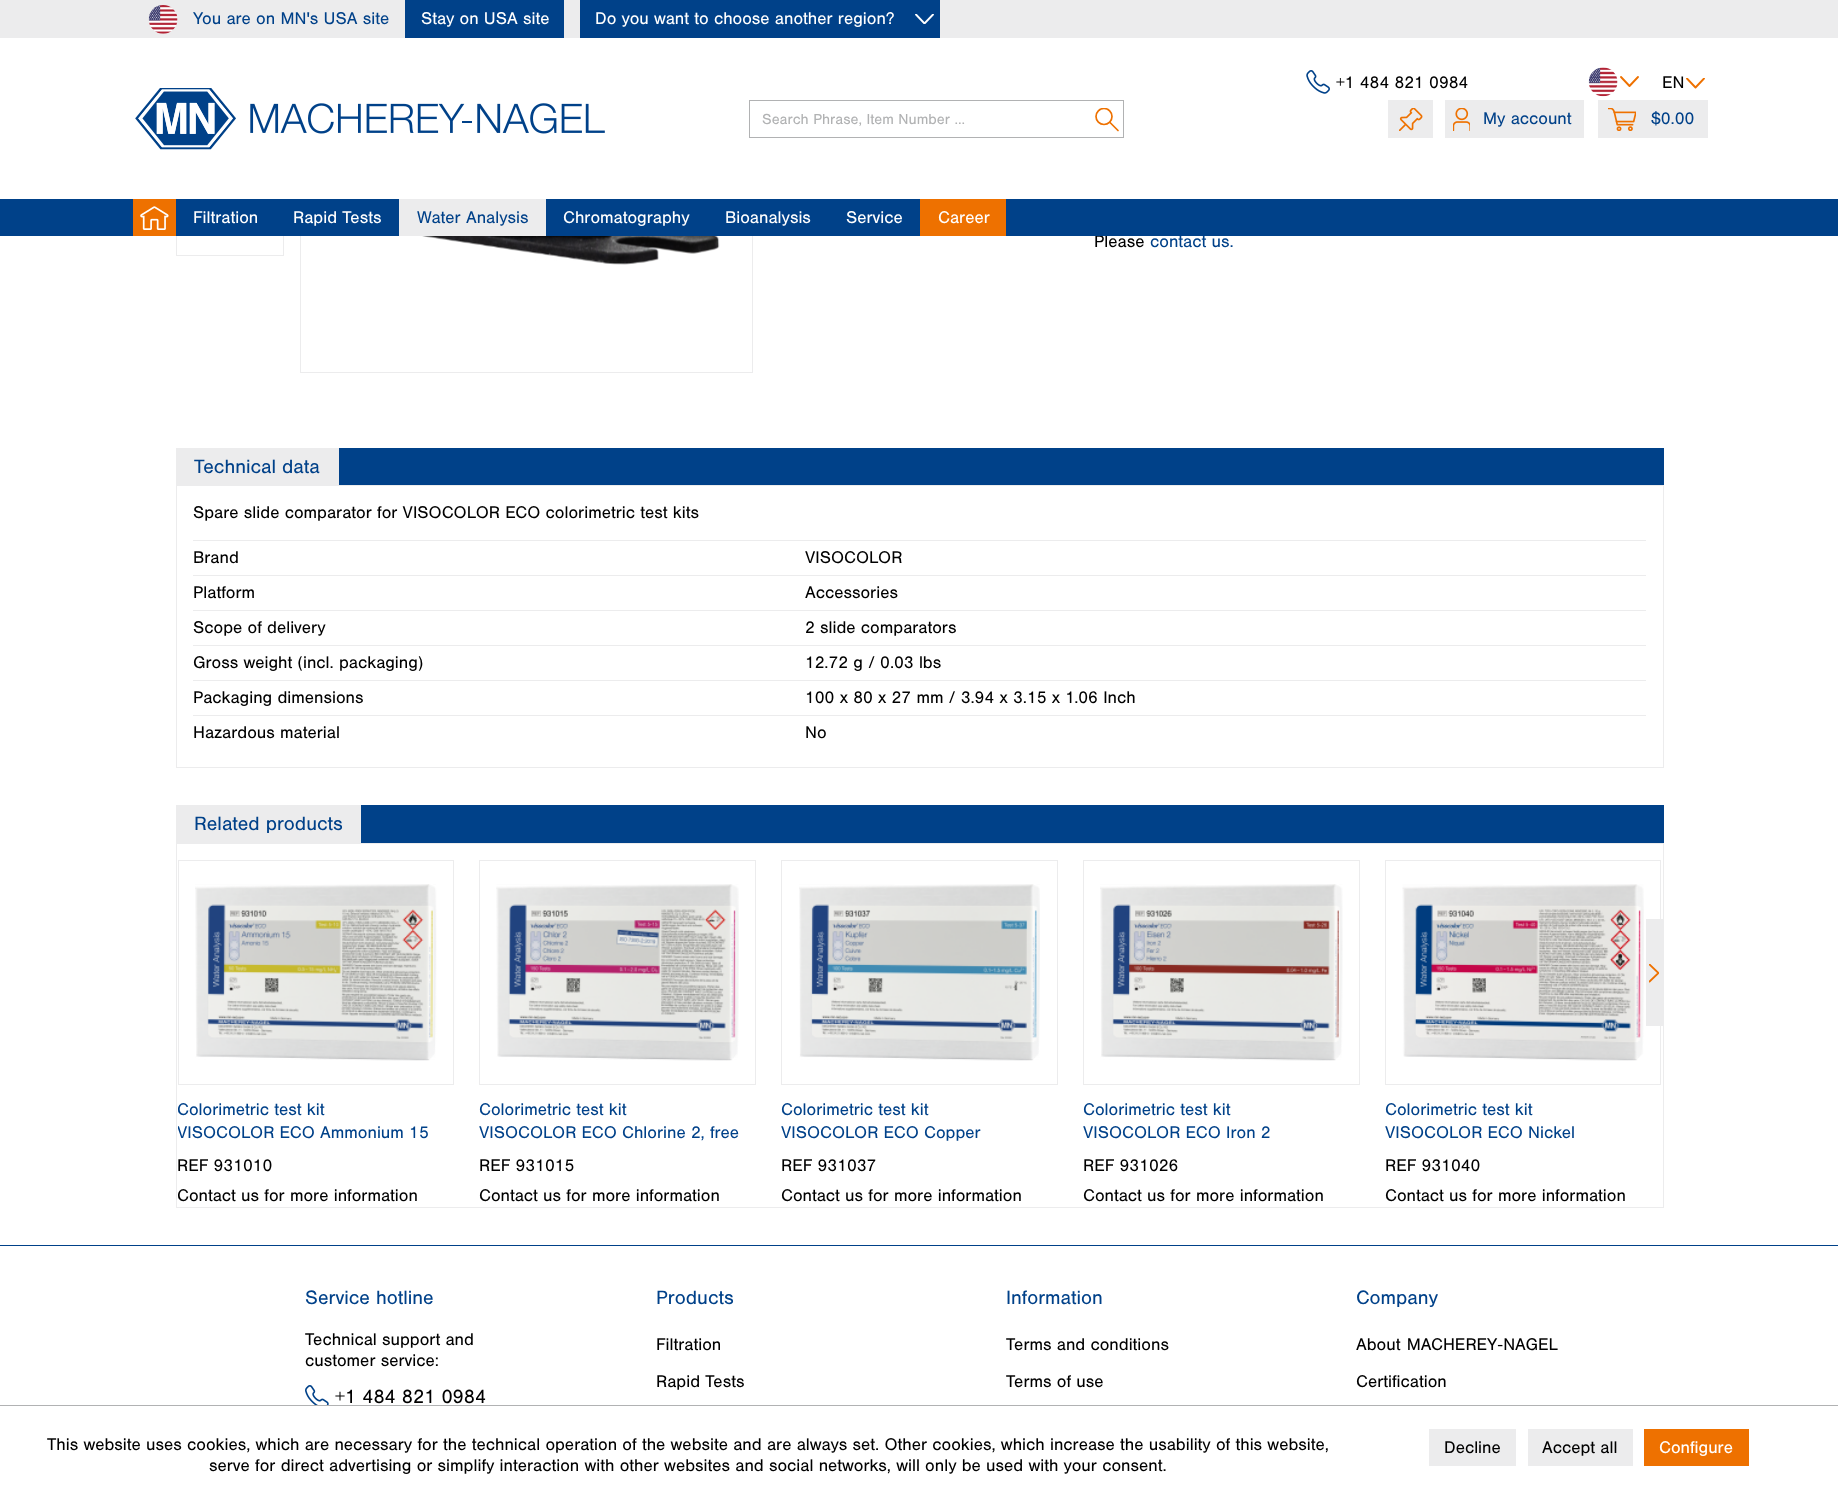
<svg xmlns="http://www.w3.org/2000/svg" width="1838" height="1503">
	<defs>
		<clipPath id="clip1"><rect x="915" y="14" width="19" height="10" /></clipPath>
		<clipPath id="clip2"><rect x="1686" y="78" width="19" height="11" /></clipPath>
		<clipPath id="clip3"><rect x="1095" y="108" width="24" height="23" /></clipPath>
		<clipPath id="clip4"><rect x="1649" y="964" width="10" height="19" /></clipPath>
		<clipPath id="clip5"><rect x="178" y="1099" width="276" height="45" /></clipPath>
		<clipPath id="clip6"><rect x="178" y="860" width="288" height="346" /></clipPath>
	</defs>
	<rect width="100%" height="100%" fill="#FFFFFF" />
	<rect x="176.5" y="156.5" width="107" height="99" fill="none" stroke="#ECECED" />
	<rect x="300.5" y="-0.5" width="452" height="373" fill="none" stroke="#ECECED" />
	<rect x="176" y="38" width="577" height="161" fill="#FFFFFF" />
	<rect x="0" y="0" width="1838" height="38" fill="#ECECED" />
	<image x="148" y="5" width="30" height="29" href="assets/img1.png" />
	<text x="193" y="24" font-family="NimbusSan" font-size="17.5" fill="#004189">You are on MN's USA site</text>
	<rect x="405" y="0" width="159" height="38" fill="#004189" />
	<text x="421" y="24" font-family="NimbusSan" font-size="17.5" fill="#FFFFFF">Stay on USA site</text>
	<rect x="580" y="0" width="360" height="38" fill="#004189" />
	<text x="595" y="24" font-family="NimbusSan" font-size="17.5" fill="#FFFFFF">Do you want to choose another region?</text>
	<g clip-path="url(#clip1)">
		<path d="M933 14.5L924.5 23.5L916 14.5" fill="none" stroke="#FFFFFF" stroke-width="1.9" stroke-linecap="round" stroke-linejoin="round" />
	</g>
	<image x="1306" y="70" width="24" height="24" href="assets/img2.png" />
	<text x="1336" y="88" font-family="NimbusSan" font-size="17.5" fill="#000000">+1 484 821 0984</text>
	<image x="1588" y="67" width="30" height="30" href="assets/img3.png" />
	<path d="M1638 77L1629.5 86L1621 77" fill="none" stroke="#EE7100" stroke-width="1.9" stroke-linecap="round" stroke-linejoin="round" />
	<text x="1662" y="88" font-family="NimbusSan" font-size="17.5" fill="#000000">EN</text>
	<g clip-path="url(#clip2)">
		<path d="M1704 78.5L1695.5 87.5L1687 78.5" fill="none" stroke="#EE7100" stroke-width="1.9" stroke-linecap="round" stroke-linejoin="round" />
	</g>
	<image x="135" y="88" width="470" height="62" href="assets/img4.png" />
	<rect x="749.5" y="100.5" width="374" height="37" fill="none" stroke="#B1B2B3" />
	<text x="762" y="124" font-family="NimbusSan" font-size="15" fill="#B1B2B3">Search Phrase, Item Number ...</text>
	<g clip-path="url(#clip3)">
		<circle cx="1104" cy="116.5" r="8" fill="none" stroke="#EE7100" stroke-width="1.7" />
	</g>
	<path d="M1110 122.5L1118 130.5" fill="none" stroke="#EE7100" stroke-width="1.7" stroke-linecap="round" />
	<rect x="1388" y="100" width="45" height="38" fill="#ECECED" />
	<image x="1399" y="108" width="24" height="23" href="assets/img5.png" />
	<rect x="1445" y="100" width="139" height="38" fill="#ECECED" />
	<image x="1453" y="108" width="17" height="23" href="assets/img6.png" />
	<text x="1483" y="124" font-family="NimbusSan" font-size="17.5" fill="#004189">My account</text>
	<rect x="1598" y="100" width="110" height="38" fill="#ECECED" />
	<image x="1608" y="108" width="28" height="23" href="assets/img7.png" />
	<text x="1651" y="124" font-family="NimbusSan" font-size="17.5" fill="#004189">$0.00</text>
	<text x="1094" y="247" font-family="NimbusSan" font-size="17.5" fill="#000000">Please</text>
	<rect x="0" y="199" width="1838" height="37" fill="#004189" />
	<rect x="133" y="199" width="43" height="37" fill="#EE7100" />
	<image x="140" y="206" width="29" height="24" href="assets/img8.png" />
	<g font-family="NimbusSan" font-size="17.5" fill="#FFFFFF">
		<text x="193" y="223">Filtration</text>
		<text x="293" y="223">Rapid Tests</text>
	</g>
	<rect x="399" y="199" width="147" height="37" fill="#ECECED" />
	<text x="417" y="223" font-family="NimbusSan" font-size="17.5" fill="#004189">Water Analysis</text>
	<g font-family="NimbusSan" font-size="17.5" fill="#FFFFFF">
		<text x="563" y="223">Chromatography</text>
		<text x="725" y="223">Bioanalysis</text>
		<text x="846" y="223">Service</text>
	</g>
	<rect x="920" y="199" width="86" height="37" fill="#EE7100" />
	<text x="938" y="223" font-family="NimbusSan" font-size="17.5" fill="#FFFFFF">Career</text>
	<image x="422" y="236" width="298" height="29" href="assets/img9.png" />
	<text x="1150" y="247" font-family="NimbusSan" font-size="17.5" fill="#004189">contact us.</text>
	<rect x="339" y="448" width="1325" height="37" fill="#004189" />
	<rect x="176" y="448" width="163" height="37" fill="#ECECED" />
	<text x="194" y="473" font-family="NimbusSan" font-size="20" fill="#004189">Technical data</text>
	<rect x="176.5" y="485.5" width="1487" height="282" fill="none" stroke="#ECECED" />
	<text x="193" y="518" font-family="NimbusSan" font-size="17.5" fill="#000000">Spare slide comparator for VISOCOLOR ECO colorimetric test kits</text>
	<rect x="193" y="540" width="1453" height="1" fill="#ECECED" />
	<g font-family="NimbusSan" font-size="17.5" fill="#000000">
		<text x="193" y="563">Brand</text>
		<text x="805" y="563">VISOCOLOR</text>
	</g>
	<rect x="193" y="575" width="1453" height="1" fill="#ECECED" />
	<g font-family="NimbusSan" font-size="17.5" fill="#000000">
		<text x="193" y="598">Platform</text>
		<text x="805" y="598">Accessories</text>
	</g>
	<rect x="193" y="610" width="1453" height="1" fill="#ECECED" />
	<g font-family="NimbusSan" font-size="17.5" fill="#000000">
		<text x="193" y="633">Scope of delivery</text>
		<text x="805" y="633">2 slide comparators</text>
	</g>
	<rect x="193" y="645" width="1453" height="1" fill="#ECECED" />
	<g font-family="NimbusSan" font-size="17.5" fill="#000000">
		<text x="193" y="668">Gross weight (incl. packaging)</text>
		<text x="805" y="668">12.72 g / 0.03 lbs</text>
	</g>
	<rect x="193" y="680" width="1453" height="1" fill="#ECECED" />
	<g font-family="NimbusSan" font-size="17.5" fill="#000000">
		<text x="193" y="703">Packaging dimensions</text>
		<text x="805" y="703">100 x 80 x 27 mm / 3.94 x 3.15 x 1.06 Inch</text>
	</g>
	<rect x="193" y="715" width="1453" height="1" fill="#ECECED" />
	<g font-family="NimbusSan" font-size="17.5" fill="#000000">
		<text x="193" y="738">Hazardous material</text>
		<text x="805" y="738">No</text>
	</g>
	<rect x="361" y="805" width="1303" height="38" fill="#004189" />
	<rect x="176" y="805" width="185" height="38" fill="#ECECED" />
	<text x="194" y="830" font-family="NimbusSan" font-size="20" fill="#004189">Related products</text>
	<rect x="176.5" y="843.5" width="1487" height="364" fill="none" stroke="#ECECED" />
	<rect x="1385.5" y="860.5" width="275" height="224" fill="none" stroke="#ECECED" />
	<rect x="1646" y="919" width="17" height="107" fill="#ECECED" />
	<g clip-path="url(#clip4)">
		<path d="M1649.5 964.5L1658.5 973L1649.5 981.5" fill="none" stroke="#EE7100" stroke-width="1.9" stroke-linecap="round" stroke-linejoin="round" />
	</g>
	<rect x="178.5" y="860.5" width="275" height="224" fill="none" stroke="#ECECED" />
	<image x="195" y="884" width="242" height="177" href="assets/img10.png" />
	<g clip-path="url(#clip5)">
		<g font-family="NimbusSan" font-size="17.5" fill="#004189">
			<text x="177" y="1115">Colorimetric test kit</text>
			<text x="177" y="1138">VISOCOLOR ECO Ammonium 15</text>
		</g>
	</g>
	<text x="177" y="1171" font-family="NimbusSan" font-size="17.5" fill="#000000">REF 931010</text>
	<g clip-path="url(#clip6)">
		<text x="177" y="1201" font-family="NimbusSan" font-size="17.5" fill="#000000">Contact us for more information</text>
	</g>
	<rect x="479.5" y="860.5" width="276" height="224" fill="none" stroke="#ECECED" />
	<image x="496" y="884" width="243" height="177" href="assets/img11.png" />
	<g font-family="NimbusSan" font-size="17.5" fill="#004189">
		<text x="479" y="1115">Colorimetric test kit</text>
		<text x="479" y="1138">VISOCOLOR ECO Chlorine 2, free</text>
	</g>
	<g font-family="NimbusSan" font-size="17.5" fill="#000000">
		<text x="479" y="1171">REF 931015</text>
		<text x="479" y="1201">Contact us for more information</text>
	</g>
	<rect x="781.5" y="860.5" width="276" height="224" fill="none" stroke="#ECECED" />
	<image x="799" y="884" width="241" height="177" href="assets/img12.png" />
	<g font-family="NimbusSan" font-size="17.5" fill="#004189">
		<text x="781" y="1115">Colorimetric test kit</text>
		<text x="781" y="1138">VISOCOLOR ECO Copper</text>
	</g>
	<g font-family="NimbusSan" font-size="17.5" fill="#000000">
		<text x="781" y="1171">REF 931037</text>
		<text x="781" y="1201">Contact us for more information</text>
	</g>
	<rect x="1083.5" y="860.5" width="276" height="224" fill="none" stroke="#ECECED" />
	<image x="1100" y="884" width="243" height="177" href="assets/img13.png" />
	<g font-family="NimbusSan" font-size="17.5" fill="#004189">
		<text x="1083" y="1115">Colorimetric test kit</text>
		<text x="1083" y="1138">VISOCOLOR ECO Iron 2</text>
	</g>
	<g font-family="NimbusSan" font-size="17.5" fill="#000000">
		<text x="1083" y="1171">REF 931026</text>
		<text x="1083" y="1201">Contact us for more information</text>
	</g>
	<image x="1402" y="884" width="242" height="177" href="assets/img14.png" />
	<g font-family="NimbusSan" font-size="17.5" fill="#004189">
		<text x="1385" y="1115">Colorimetric test kit</text>
		<text x="1385" y="1138">VISOCOLOR ECO Nickel</text>
	</g>
	<g font-family="NimbusSan" font-size="17.5" fill="#000000">
		<text x="1385" y="1171">REF 931040</text>
		<text x="1385" y="1201">Contact us for more information</text>
	</g>
	<rect x="0" y="1245" width="1838" height="1" fill="#004189" />
	<text x="305" y="1304" font-family="NimbusSan" font-size="20" fill="#004189">Service hotline</text>
	<g font-family="NimbusSan" font-size="17.5" fill="#000000">
		<text x="305" y="1345">Technical support and</text>
		<text x="305" y="1366">customer service:</text>
	</g>
	<image x="305" y="1385" width="24" height="20" href="assets/img15.png" />
	<text x="335" y="1403" font-family="NimbusSan" font-size="20" fill="#000000">+1 484 821 0984</text>
	<text x="656" y="1304" font-family="NimbusSan" font-size="20" fill="#004189">Products</text>
	<g font-family="NimbusSan" font-size="17.5" fill="#000000">
		<text x="656" y="1350">Filtration</text>
		<text x="656" y="1387">Rapid Tests</text>
	</g>
	<text x="1006" y="1304" font-family="NimbusSan" font-size="20" fill="#004189">Information</text>
	<g font-family="NimbusSan" font-size="17.5" fill="#000000">
		<text x="1006" y="1350">Terms and conditions</text>
		<text x="1006" y="1387">Terms of use</text>
	</g>
	<text x="1356" y="1304" font-family="NimbusSan" font-size="20" fill="#004189">Company</text>
	<g font-family="NimbusSan" font-size="17.5" fill="#000000">
		<text x="1356" y="1350" word-spacing="1">About MACHEREY‑NAGEL</text>
		<text x="1356" y="1387">Certification</text>
	</g>
	<rect x="0" y="1405" width="1838" height="1" fill="#B1B2B3" />
	<g font-family="NimbusSan" font-size="17.5" fill="#000000">
		<text x="47" y="1450">This website uses cookies, which are necessary for the technical operation of the website and are always set. Other cookies, which increase the usability of this website,</text>
		<text x="209" y="1471">serve for direct advertising or simplify interaction with other websites and social networks, will only be used with your consent.</text>
	</g>
	<rect x="1429" y="1429" width="87" height="37" fill="#ECECED" />
	<text x="1444" y="1453" font-family="NimbusSan" font-size="17.5" fill="#000000">Decline</text>
	<rect x="1528" y="1429" width="105" height="37" fill="#ECECED" />
	<text x="1542" y="1453" font-family="NimbusSan" font-size="17.5" fill="#000000">Accept all</text>
	<rect x="1644" y="1429" width="105" height="37" fill="#EE7100" />
	<text x="1659" y="1453" font-family="NimbusSan" font-size="17.5" fill="#FFFFFF">Configure</text>
</svg>
